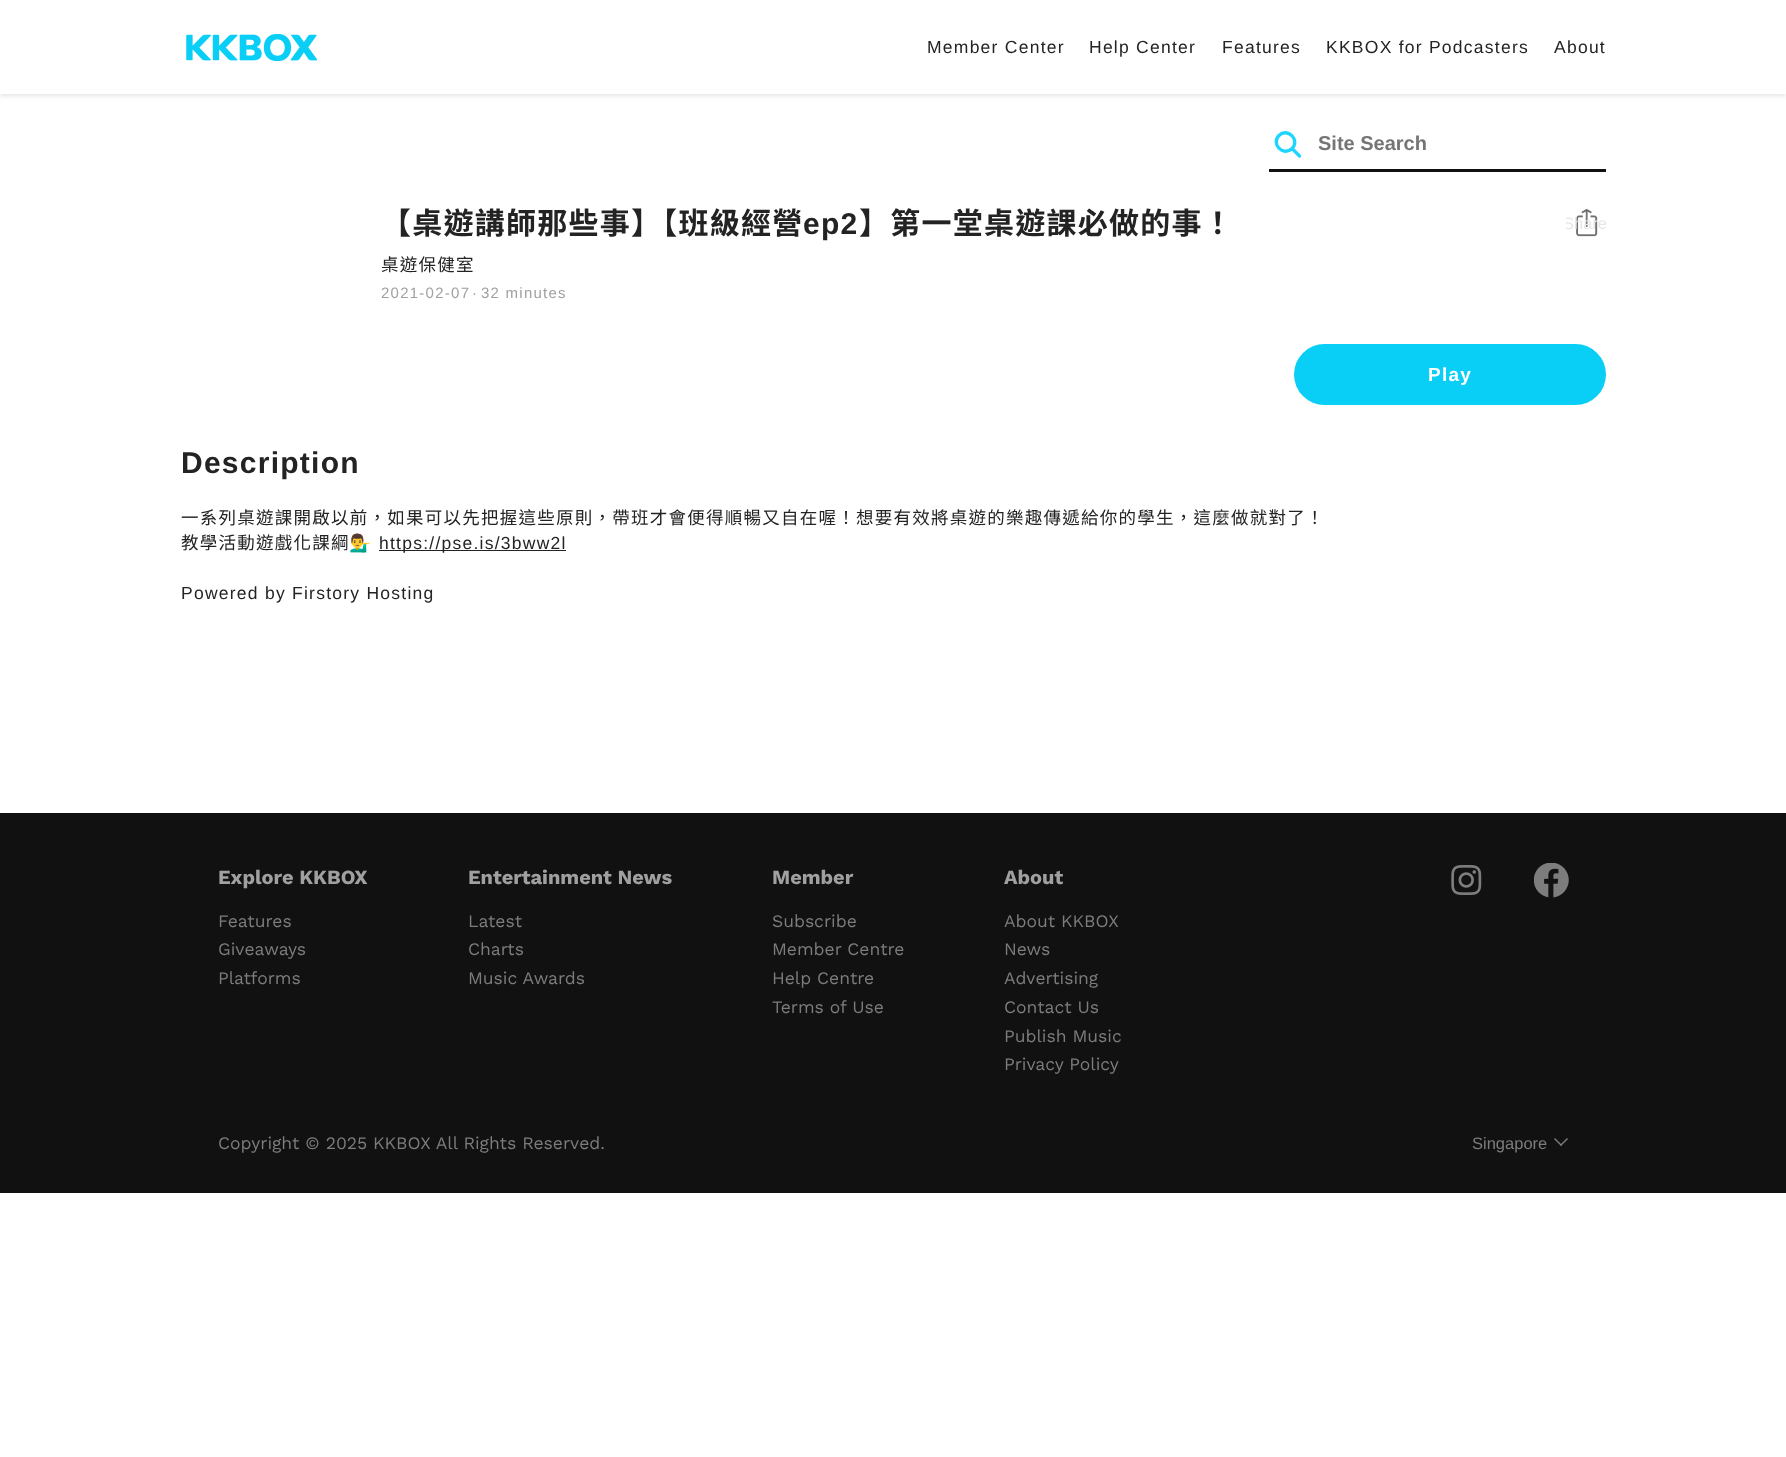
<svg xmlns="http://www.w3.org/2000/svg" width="1786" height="1457">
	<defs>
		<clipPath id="clip1"><path d="M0 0H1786V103H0ZM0 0H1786V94H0Z" clip-rule="evenodd" /></clipPath>
		<clipPath id="clip2"><rect x="1566" y="204" width="40" height="40" /></clipPath>
	</defs>
	<rect width="100%" height="100%" fill="#FFFFFF" />
	<g clip-path="url(#clip1)">
		<rect x="0" y="3" width="1786" height="93" fill="#000000" fill-opacity="0.1" filter="blur(2px)" />
	</g>
	<image x="186" y="34" width="132" height="27" href="assets/img1.png" />
	<g font-family="Liberation Sans" font-size="17.5" letter-spacing="1.25" fill="#232323">
		<text x="927" y="53">Member Center</text>
		<text x="1089" y="53">Help Center</text>
		<text x="1222" y="53">Features</text>
		<text x="1326" y="53">KKBOX for Podcasters</text>
		<text x="1554" y="53">About</text>
	</g>
	<rect x="1269" y="169" width="337" height="3" fill="#111111" />
	<path d="M1279 135.5C1287.5 127 1300.5 140 1292 148.5C1283.5 157 1270.5 144 1279 135.5ZM1292.5 149L1299.5 156" fill="none" stroke="#1DD6FF" stroke-width="3.3" stroke-linecap="round" stroke-linejoin="round" />
	<text x="1318" y="150" font-family="Liberation Sans" font-size="20" font-weight="700" fill="#757575">Site Search</text>
	<text x="381" y="234" font-family="Noto Sans CJK TC" font-size="30" font-weight="700" letter-spacing="1.25" fill="#232323">【桌遊講師那些事】【班級經營</text>
	<text x="803" y="234" font-family="Liberation Sans" font-size="30" font-weight="700" letter-spacing="1.25" fill="#232323">ep2</text>
	<text x="859" y="234" font-family="Noto Sans CJK TC" font-size="30" font-weight="700" letter-spacing="1.25" fill="#232323">】第一堂桌遊課必做的事！</text>
	<text x="381" y="271" font-family="Noto Sans CJK TC" font-size="17.5" letter-spacing="1.25" fill="#232323">桌遊保健室</text>
	<g font-family="Liberation Sans" font-size="15" letter-spacing="1.25" fill="#A0A0A0">
		<text x="381" y="298">2021-02-07</text>
		<text x="472" y="298">·</text>
		<text x="481" y="298">32 minutes</text>
	</g>
	<image x="1576" y="208" width="22" height="29" href="assets/img2.png" />
	<g clip-path="url(#clip2)">
		<text x="1563" y="229" font-family="Liberation Sans" font-size="16.5" fill="#E7E7E7">Share</text>
	</g>
	<rect x="1294" y="344" width="312" height="61" rx="30.5" fill="#09CEF6" />
	<text x="1428" y="381" font-family="Liberation Sans" font-size="19" font-weight="700" letter-spacing="1.25" fill="#FFFFFF">Play</text>
	<text x="181" y="473" font-family="Liberation Sans" font-size="30" font-weight="700" letter-spacing="1.25" fill="#232323">Description</text>
	<g font-family="Noto Sans CJK TC" font-size="17.5" letter-spacing="1.25" fill="#232323">
		<text x="181" y="524">一系列桌遊課開啟以前，如果可以先把握這些原則，帶班才會便得順暢又自在喔！想要有效將桌遊的樂趣傳遞給你的學生，這麼做就對了！</text>
		<text x="181" y="549">教學活動遊戲化課綱</text>
	</g>
	<text x="349" y="549" font-family="Noto Color Emoji" font-size="17.5" letter-spacing="1.25" fill="#232323">💁‍♂️</text>
	<rect x="379" y="550" width="187" height="1" fill="#232323" />
	<g font-family="Liberation Sans" font-size="17.5" letter-spacing="1.25" fill="#232323">
		<text x="379" y="549">https://pse.is/3bww2l</text>
		<text x="181" y="599">Powered by Firstory Hosting</text>
	</g>
	<rect x="0" y="813" width="1786" height="380" fill="#111111" />
	<text x="218" y="884" font-family="Work Sans" font-size="20" font-weight="700" fill="#A0A0A0">Explore KKBOX</text>
	<g font-family="Work Sans" font-size="17.5" fill="#7D7D7D">
		<text x="218" y="927">Features</text>
		<text x="218" y="955">Giveaways</text>
		<text x="218" y="984">Platforms</text>
	</g>
	<text x="468" y="884" font-family="Work Sans" font-size="20" font-weight="700" fill="#A0A0A0">Entertainment News</text>
	<g font-family="Work Sans" font-size="17.5" fill="#7D7D7D">
		<text x="468" y="927">Latest</text>
		<text x="468" y="955">Charts</text>
		<text x="468" y="984">Music Awards</text>
	</g>
	<text x="772" y="884" font-family="Work Sans" font-size="20" font-weight="700" fill="#A0A0A0">Member</text>
	<g font-family="Work Sans" font-size="17.5" fill="#7D7D7D">
		<text x="772" y="927">Subscribe</text>
		<text x="772" y="955">Member Centre</text>
		<text x="772" y="984">Help Centre</text>
		<text x="772" y="1013">Terms of Use</text>
	</g>
	<text x="1004" y="884" font-family="Work Sans" font-size="20" font-weight="700" fill="#A0A0A0">About</text>
	<g font-family="Work Sans" font-size="17.5" fill="#7D7D7D">
		<text x="1004" y="927">About KKBOX</text>
		<text x="1004" y="955">News</text>
		<text x="1004" y="984">Advertising</text>
		<text x="1004" y="1013">Contact Us</text>
		<text x="1004" y="1042">Publish Music</text>
		<text x="1004" y="1070">Privacy Policy</text>
	</g>
	<image x="1451" y="865" width="31" height="30" href="assets/img3.png" />
	<image x="1534" y="863" width="35" height="35" href="assets/img4.png" />
	<text x="218" y="1149" font-family="Work Sans" font-size="17.5" fill="#7D7D7D">Copyright © 2025 KKBOX All Rights Reserved.</text>
	<text x="1472" y="1149" font-family="Liberation Sans" font-size="16.5" fill="#7D7D7D">Singapore</text>
	<path d="M1567 1138L1568 1139L1561 1146L1560 1145Z" fill="#7D7D7D" />
	<path d="M1555 1138L1562 1145L1561 1146L1554 1139Z" fill="#7D7D7D" />
</svg>
